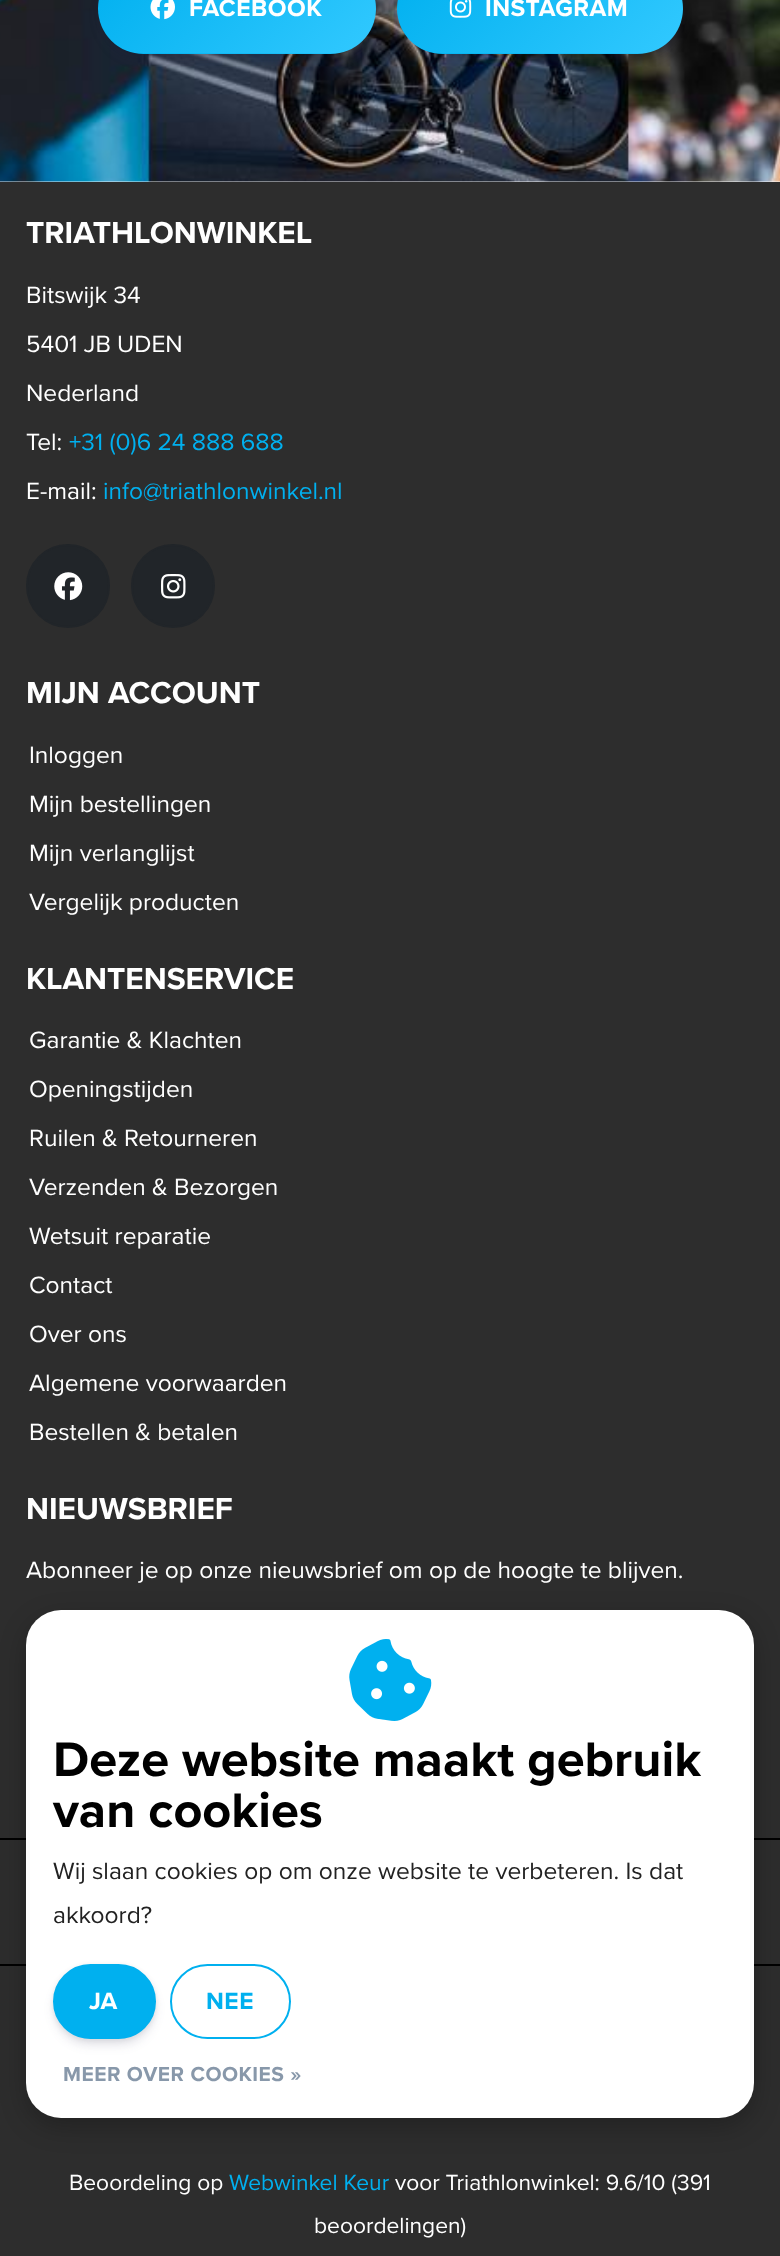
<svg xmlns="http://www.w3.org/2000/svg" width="780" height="2256">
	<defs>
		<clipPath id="clip1"><rect x="98" y="-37" width="278" height="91" rx="45.5" /></clipPath>
		<linearGradient id="g1" gradientUnits="userSpaceOnUse" x1="146" y1="-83" x2="329" y2="100"><stop offset="0" stop-color="#00B0EF" /><stop offset="1" stop-color="#32C9FF" /></linearGradient>
		<linearGradient id="g2" gradientUnits="userSpaceOnUse" x1="146" y1="4.8" x2="329" y2="188"><stop offset="0" stop-color="#00B0EF" /><stop offset="1" stop-color="#32C9FF" /></linearGradient>
		<clipPath id="clip2"><rect x="397" y="-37" width="286" height="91" rx="45.5" /></clipPath>
		<linearGradient id="g3" gradientUnits="userSpaceOnUse" x1="447" y1="-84" x2="633" y2="102"><stop offset="0" stop-color="#00B0EF" /><stop offset="1" stop-color="#32C9FF" /></linearGradient>
		<linearGradient id="g4" gradientUnits="userSpaceOnUse" x1="447" y1="3.1" x2="633" y2="189"><stop offset="0" stop-color="#00B0EF" /><stop offset="1" stop-color="#32C9FF" /></linearGradient>
	</defs>
	<rect width="100%" height="100%" fill="#FFFFFF" />
	<image x="0" y="0" width="780" height="182" href="assets/img1.png" />
	<rect x="98" y="-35" width="278" height="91" rx="45.5" fill="#000000" fill-opacity="0.08" filter="blur(2.5px)" />
	<rect x="98" y="-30" width="278" height="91" rx="45.5" fill="#32325D" fill-opacity="0.11" filter="blur(5px)" />
	<g clip-path="url(#clip1)">
		<rect x="98" y="0" width="278" height="53" fill="url(#g1)" />
		<rect x="134" y="53" width="206" height="1" fill="url(#g2)" />
	</g>
	<image x="150" y="0" width="25" height="20" href="assets/img2.png" />
	<text x="189" y="16" font-family="Proxima Nova" font-size="24.5" font-weight="700" letter-spacing="0.5" fill="#FFFFFF">FACEBOOK</text>
	<rect x="397" y="-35" width="286" height="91" rx="45.5" fill="#000000" fill-opacity="0.08" filter="blur(2.5px)" />
	<rect x="397" y="-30" width="286" height="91" rx="45.5" fill="#32325D" fill-opacity="0.11" filter="blur(5px)" />
	<g clip-path="url(#clip2)">
		<rect x="397" y="0" width="286" height="53" fill="url(#g3)" />
		<rect x="433" y="53" width="214" height="1" fill="url(#g4)" />
	</g>
	<image x="449" y="0" width="23" height="18" href="assets/img3.png" />
	<text x="485" y="16" font-family="Proxima Nova" font-size="24.5" font-weight="700" letter-spacing="0.5" fill="#FFFFFF">INSTAGRAM</text>
	<rect x="0" y="182" width="780" height="1656" fill="#2D2D2D" />
	<text x="26" y="243" font-family="Proxima Nova" font-size="31.5" font-weight="700" fill="#FFFFFF">TRIATHLONWINKEL</text>
	<g font-family="Proxima Nova" font-size="24.5" fill="#FFFFFF">
		<text x="26" y="303">Bitswijk 34</text>
		<text x="26" y="352">5401 JB UDEN</text>
		<text x="26" y="401">Nederland</text>
		<text x="26" y="450">Tel:</text>
	</g>
	<text x="69" y="450" font-family="Proxima Nova" font-size="24.5" fill="#00B0EF">+31 (0)6 24 888 688</text>
	<text x="26" y="499" font-family="Proxima Nova" font-size="24.5" fill="#FFFFFF">E-mail:</text>
	<text x="103" y="499" font-family="Proxima Nova" font-size="24.5" fill="#00B0EF">info@triathlonwinkel.nl</text>
	<circle cx="68" cy="586" r="41" fill="#212529" stroke="#212529" stroke-width="2" />
	<image x="54" y="572" width="29" height="29" href="assets/img4.png" />
	<circle cx="173" cy="586" r="41" fill="#212529" stroke="#212529" stroke-width="2" />
	<image x="161" y="574" width="25" height="25" href="assets/img5.png" />
	<text x="26" y="703" font-family="Proxima Nova" font-size="31.5" font-weight="700" fill="#FFFFFF">MIJN ACCOUNT</text>
	<g font-family="Proxima Nova" font-size="24.5" fill="#FFFFFF">
		<text x="29" y="763">Inloggen</text>
		<text x="29" y="812">Mijn bestellingen</text>
		<text x="29" y="861">Mijn verlanglijst</text>
		<text x="29" y="910">Vergelijk producten</text>
	</g>
	<text x="26" y="989" font-family="Proxima Nova" font-size="31.5" font-weight="700" fill="#FFFFFF">KLANTENSERVICE</text>
	<g font-family="Proxima Nova" font-size="24.5" fill="#FFFFFF">
		<text x="29" y="1048">Garantie &amp; Klachten</text>
		<text x="29" y="1097">Openingstijden</text>
		<text x="29" y="1146">Ruilen &amp; Retourneren</text>
		<text x="29" y="1195">Verzenden &amp; Bezorgen</text>
		<text x="29" y="1244">Wetsuit reparatie</text>
		<text x="29" y="1293">Contact</text>
		<text x="29" y="1342">Over ons</text>
		<text x="29" y="1391">Algemene voorwaarden</text>
		<text x="29" y="1440">Bestellen &amp; betalen</text>
	</g>
	<text x="26" y="1519" font-family="Proxima Nova" font-size="31.5" font-weight="700" fill="#FFFFFF">NIEUWSBRIEF</text>
	<text x="26" y="1578" font-family="Proxima Nova" font-size="24.5" fill="#FFFFFF">Abonneer je op onze nieuwsbrief om op de hoogte te blijven.</text>
	<rect x="0" y="1838" width="780" height="2" fill="#000000" />
	<rect x="0" y="1840" width="780" height="416" fill="#2D2D2D" />
	<rect x="0" y="1964" width="780" height="2" fill="#000000" />
	<rect x="26" y="1619" width="728" height="507" rx="35" fill="#000000" fill-opacity="0.25" filter="blur(13px)" />
	<rect x="26" y="1610" width="728" height="508" rx="35" fill="#FFFFFF" />
	<image x="349" y="1639" width="83" height="82" href="assets/img6.png" />
	<g font-family="Proxima Nova" font-size="50.4" font-weight="700" fill="#000000">
		<text x="53" y="1776">Deze website maakt gebruik</text>
		<text x="53" y="1827">van cookies</text>
	</g>
	<g font-family="Proxima Nova" font-size="24.5" fill="#222222">
		<text x="53" y="1879">Wij slaan cookies op om onze website te verbeteren. Is dat</text>
		<text x="53" y="1923">akkoord?</text>
	</g>
	<rect x="53" y="1965" width="103" height="76" rx="38" fill="#000000" fill-opacity="0.08" filter="blur(2.5px)" />
	<rect x="53" y="1971" width="103" height="75" rx="37.5" fill="#32325D" fill-opacity="0.11" filter="blur(5px)" />
	<rect x="54" y="1965" width="101" height="73" rx="36.5" fill="#00B0EF" stroke="#00B0EF" stroke-width="2" />
	<text x="89" y="2009" font-family="Proxima Nova" font-size="24.5" font-weight="700" letter-spacing="0.5" fill="#FFFFFF">JA</text>
	<rect x="171" y="1965" width="119" height="73" rx="36.5" fill="none" stroke="#00B0EF" stroke-width="2" />
	<text x="206" y="2009" font-family="Proxima Nova" font-size="24.5" font-weight="700" letter-spacing="0.5" fill="#00B0EF">NEE</text>
	<text x="63" y="2081" font-family="Proxima Nova" font-size="21" font-weight="700" letter-spacing="0.5" fill="#8898AA">MEER OVER COOKIES »</text>
	<text x="69" y="2190" font-family="Proxima Nova" font-size="22.75" fill="#FFFFFF">Beoordeling op</text>
	<text x="229" y="2190" font-family="Proxima Nova" font-size="22.75" fill="#00B0EF">Webwinkel Keur</text>
	<g font-family="Proxima Nova" font-size="22.75" fill="#FFFFFF">
		<text x="395" y="2190">voor Triathlonwinkel: 9.6/10 (391</text>
		<text x="314" y="2233">beoordelingen)</text>
	</g>
</svg>
